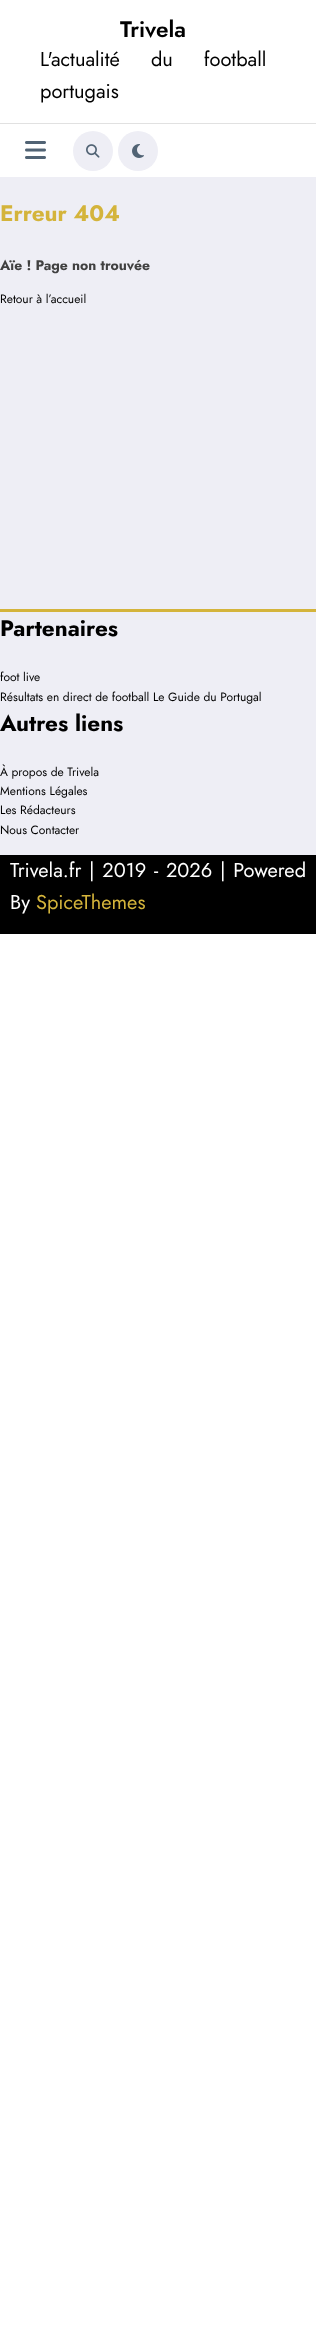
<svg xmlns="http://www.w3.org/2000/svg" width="316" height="2343">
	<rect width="100%" height="100%" fill="#FFFFFF" />
	<rect x="0" y="177" width="316" height="678" fill="#EEEEF5" />
	<text x="120" y="37" font-family="Jost" font-size="22.5" font-weight="600" fill="#000000">Trivela</text>
	<g font-family="Jost" font-size="20" fill="#000000">
		<text x="40" y="66" word-spacing="25">L'actualité du football</text>
		<text x="40" y="98">portugais</text>
	</g>
	<rect x="0" y="123" width="316" height="1" fill="#E1E1E1" />
	<image x="25" y="141" width="21" height="18" href="assets/img1.png" />
	<circle cx="93" cy="151" r="20" fill="#EEEEF5" />
	<image x="86" y="144" width="14" height="14" href="assets/img2.png" />
	<circle cx="138" cy="151" r="20" fill="#EEEEF5" />
	<image x="132" y="144" width="12" height="14" href="assets/img3.png" />
	<text x="0" y="221" font-family="Jost" font-size="22.5" font-weight="700" fill="#D4B43B">Erreur 404</text>
	<text x="0" y="270" font-family="Jost" font-size="14" font-weight="700" fill="#404040">Aïe ! Page non trouvée</text>
	<text x="0" y="303" font-family="Jost" font-size="12" fill="#000000">Retour à l’accueil</text>
	<rect x="0" y="609" width="316" height="3" fill="#D4B43B" />
	<text x="0" y="636" font-family="Jost" font-size="22.5" font-weight="700" fill="#000000">Partenaires</text>
	<g font-family="Jost" font-size="12" fill="#000000">
		<text x="0" y="681">foot live</text>
		<text x="0" y="701">Résultats en direct de football Le Guide du Portugal</text>
	</g>
	<text x="0" y="731" font-family="Jost" font-size="22.5" font-weight="700" fill="#000000">Autres liens</text>
	<g font-family="Jost" font-size="12" fill="#000000">
		<text x="0" y="776">À propos de Trivela</text>
		<text x="0" y="795">Mentions Légales</text>
		<text x="0" y="814">Les Rédacteurs</text>
		<text x="0" y="834">Nous Contacter</text>
	</g>
	<rect x="0" y="855" width="316" height="79" fill="#000000" />
	<g font-family="Jost" font-size="20" fill="#FFFFFF">
		<text x="10" y="877" word-spacing="1.75">Trivela.fr | 2019 - 2026 | Powered</text>
		<text x="10" y="909">By</text>
	</g>
	<text x="36" y="909" font-family="Jost" font-size="20" fill="#D4B43B">SpiceThemes</text>
</svg>
